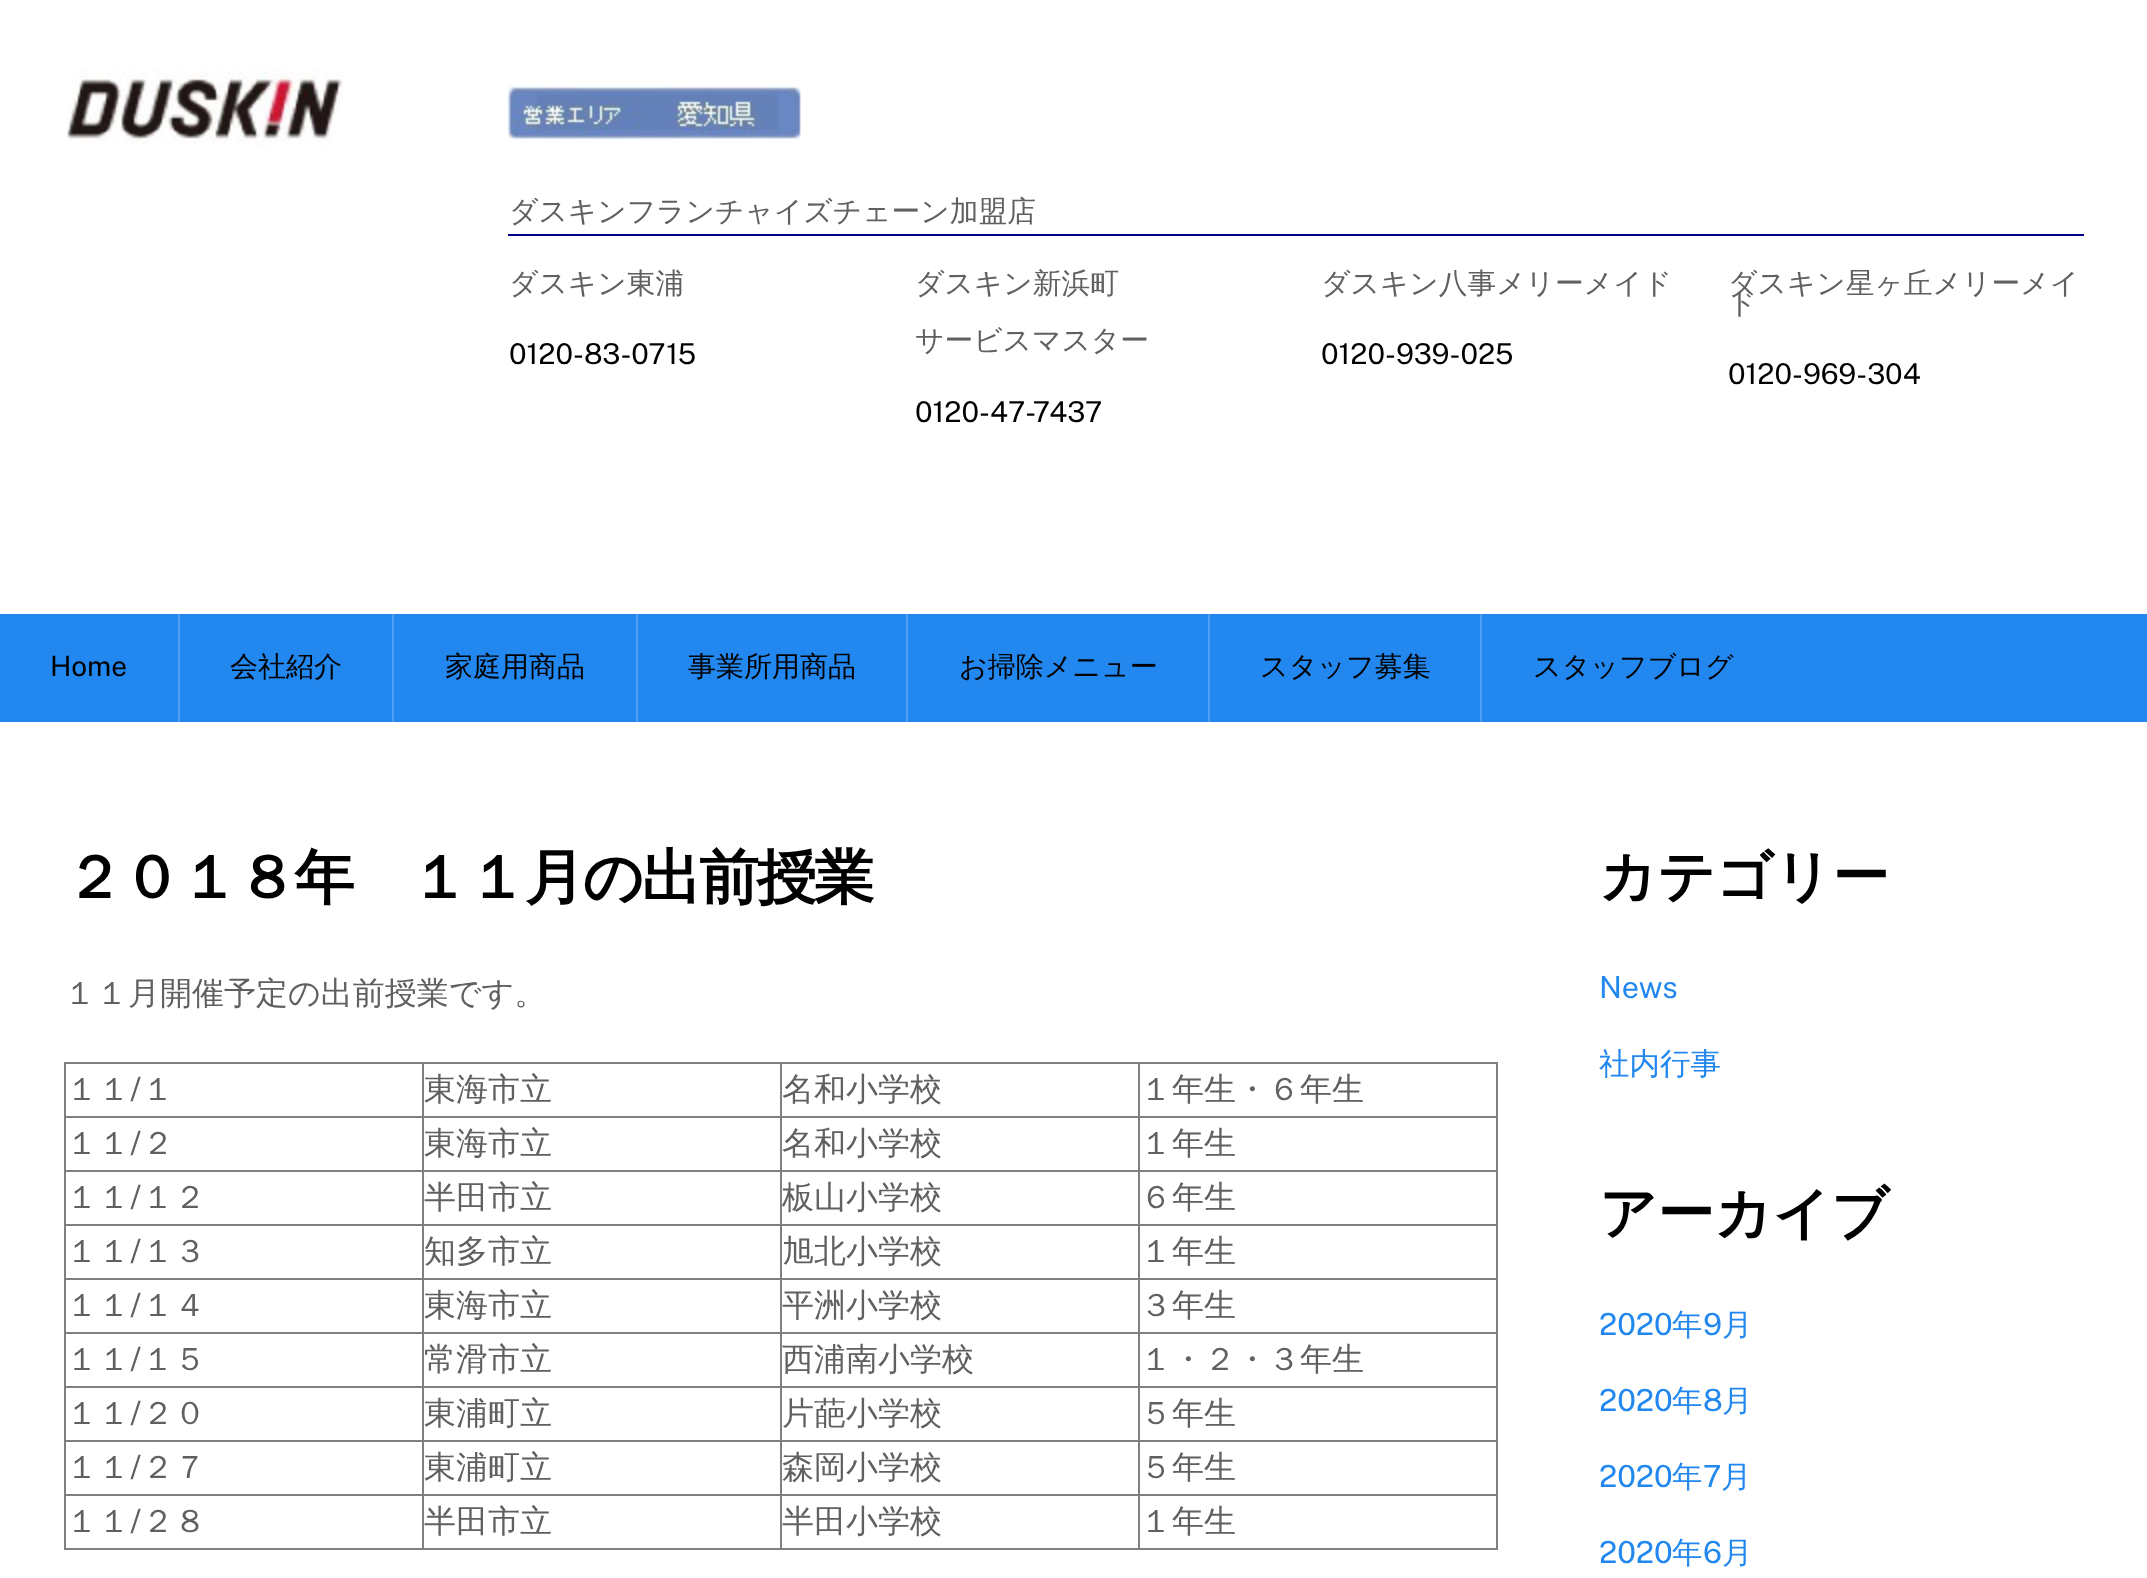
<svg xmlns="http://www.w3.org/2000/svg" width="2147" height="1578">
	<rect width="100%" height="100%" fill="#FFFFFF" />
	<image x="67" y="70" width="276" height="76" href="assets/img1.png" />
	<image x="508" y="86" width="293" height="54" href="assets/img2.png" />
	<rect x="508" y="234" width="1576" height="2" fill="#00008B" />
	<g font-family="WenQuanYi Zen Hei" font-size="28.75" font-weight="500" fill="#606060">
		<text x="509" y="221">ダスキンフランチャイズチェーン加盟店</text>
		<text x="509" y="293">ダスキン東浦</text>
	</g>
	<text x="509" y="364" font-family="Public Sans" font-size="28.75" fill="#000000">0120-83-0715</text>
	<g font-family="WenQuanYi Zen Hei" font-size="28.75" font-weight="500" fill="#606060">
		<text x="915" y="293">ダスキン新浜町</text>
		<text x="915" y="350">サービスマスター</text>
	</g>
	<text x="915" y="422" font-family="Public Sans" font-size="28.75" fill="#000000">0120-47-7437</text>
	<text x="1321" y="293" font-family="WenQuanYi Zen Hei" font-size="28.75" font-weight="500" fill="#606060">ダスキン八事メリーメイド</text>
	<text x="1321" y="364" font-family="Public Sans" font-size="28.75" fill="#000000">0120-939-025</text>
	<g font-family="WenQuanYi Zen Hei" font-size="28.75" font-weight="500" fill="#606060">
		<text x="1728" y="293">ダスキン星ヶ丘メリーメイ</text>
		<text x="1728" y="313">ド</text>
	</g>
	<text x="1728" y="384" font-family="Public Sans" font-size="28.75" fill="#000000">0120-969-304</text>
	<rect x="0" y="614" width="2147" height="108" fill="#2287EF" />
	<text x="50" y="676" font-family="Public Sans" font-size="28" fill="#000000">Home</text>
	<rect x="178" y="614" width="2" height="108" fill="#4E9FF2" />
	<text x="230" y="676" font-family="WenQuanYi Zen Hei" font-size="28" font-weight="500" fill="#000000">会社紹介</text>
	<rect x="392" y="614" width="2" height="108" fill="#4E9FF2" />
	<text x="445" y="676" font-family="WenQuanYi Zen Hei" font-size="28" font-weight="500" fill="#000000">家庭用商品</text>
	<rect x="636" y="614" width="2" height="108" fill="#4E9FF2" />
	<text x="688" y="676" font-family="WenQuanYi Zen Hei" font-size="28" font-weight="500" fill="#000000">事業所用商品</text>
	<rect x="906" y="614" width="2" height="108" fill="#4E9FF2" />
	<text x="959" y="676" font-family="WenQuanYi Zen Hei" font-size="28" font-weight="500" fill="#000000">お掃除メニュー</text>
	<rect x="1208" y="614" width="2" height="108" fill="#4E9FF2" />
	<text x="1260" y="676" font-family="WenQuanYi Zen Hei" font-size="28" font-weight="500" fill="#000000">スタッフ募集</text>
	<rect x="1480" y="614" width="2" height="108" fill="#4E9FF2" />
	<text x="1533" y="676" font-family="WenQuanYi Zen Hei" font-size="28" font-weight="500" fill="#000000">スタッフブログ</text>
	<text x="64" y="898" font-family="WenQuanYi Zen Hei" font-size="60" font-weight="700" letter-spacing="-2.4" fill="#000000">２０１８年　１１月の出前授業</text>
	<text x="64" y="1004" font-family="WenQuanYi Zen Hei" font-size="32" font-weight="500" fill="#606060">１１月開催予定の出前授業です。</text>
	<rect x="64" y="1062" width="1434" height="2" fill="#808080" />
	<rect x="1496" y="1062" width="2" height="488" fill="#808080" />
	<rect x="64" y="1548" width="1434" height="2" fill="#808080" />
	<rect x="64" y="1062" width="2" height="488" fill="#808080" />
	<text x="66" y="1100" font-family="WenQuanYi Zen Hei" font-size="32" font-weight="500" fill="#606060">１１</text>
	<text x="130" y="1100" font-family="Public Sans" font-size="32" fill="#606060">/</text>
	<text x="142" y="1100" font-family="WenQuanYi Zen Hei" font-size="32" font-weight="500" fill="#606060">１</text>
	<rect x="1138" y="1116" width="360" height="2" fill="#808080" />
	<rect x="1138" y="1170" width="360" height="2" fill="#808080" />
	<rect x="1138" y="1224" width="360" height="2" fill="#808080" />
	<rect x="1138" y="1278" width="360" height="2" fill="#808080" />
	<rect x="1138" y="1332" width="360" height="2" fill="#808080" />
	<rect x="1138" y="1386" width="360" height="2" fill="#808080" />
	<rect x="1138" y="1440" width="360" height="2" fill="#808080" />
	<rect x="1138" y="1494" width="360" height="2" fill="#808080" />
	<rect x="1138" y="1494" width="2" height="56" fill="#808080" />
	<rect x="780" y="1494" width="360" height="2" fill="#808080" />
	<rect x="1138" y="1440" width="2" height="56" fill="#808080" />
	<rect x="780" y="1440" width="360" height="2" fill="#808080" />
	<rect x="1138" y="1386" width="2" height="56" fill="#808080" />
	<rect x="780" y="1386" width="360" height="2" fill="#808080" />
	<rect x="1138" y="1332" width="2" height="56" fill="#808080" />
	<rect x="780" y="1332" width="360" height="2" fill="#808080" />
	<rect x="1138" y="1278" width="2" height="56" fill="#808080" />
	<rect x="780" y="1278" width="360" height="2" fill="#808080" />
	<rect x="1138" y="1224" width="2" height="56" fill="#808080" />
	<rect x="780" y="1224" width="360" height="2" fill="#808080" />
	<rect x="1138" y="1170" width="2" height="56" fill="#808080" />
	<rect x="780" y="1170" width="360" height="2" fill="#808080" />
	<rect x="1138" y="1116" width="2" height="56" fill="#808080" />
	<rect x="780" y="1116" width="360" height="2" fill="#808080" />
	<rect x="780" y="1494" width="2" height="56" fill="#808080" />
	<rect x="422" y="1494" width="360" height="2" fill="#808080" />
	<rect x="780" y="1440" width="2" height="56" fill="#808080" />
	<rect x="422" y="1440" width="360" height="2" fill="#808080" />
	<rect x="780" y="1386" width="2" height="56" fill="#808080" />
	<rect x="422" y="1386" width="360" height="2" fill="#808080" />
	<rect x="780" y="1332" width="2" height="56" fill="#808080" />
	<rect x="422" y="1332" width="360" height="2" fill="#808080" />
	<rect x="780" y="1278" width="2" height="56" fill="#808080" />
	<rect x="422" y="1278" width="360" height="2" fill="#808080" />
	<rect x="780" y="1224" width="2" height="56" fill="#808080" />
	<rect x="422" y="1224" width="360" height="2" fill="#808080" />
	<rect x="780" y="1170" width="2" height="56" fill="#808080" />
	<rect x="422" y="1170" width="360" height="2" fill="#808080" />
	<rect x="780" y="1116" width="2" height="56" fill="#808080" />
	<rect x="422" y="1116" width="360" height="2" fill="#808080" />
	<rect x="422" y="1494" width="2" height="56" fill="#808080" />
	<rect x="64" y="1494" width="360" height="2" fill="#808080" />
	<rect x="422" y="1440" width="2" height="56" fill="#808080" />
	<rect x="64" y="1440" width="360" height="2" fill="#808080" />
	<rect x="422" y="1386" width="2" height="56" fill="#808080" />
	<rect x="64" y="1386" width="360" height="2" fill="#808080" />
	<rect x="422" y="1332" width="2" height="56" fill="#808080" />
	<rect x="64" y="1332" width="360" height="2" fill="#808080" />
	<rect x="422" y="1278" width="2" height="56" fill="#808080" />
	<rect x="64" y="1278" width="360" height="2" fill="#808080" />
	<rect x="422" y="1224" width="2" height="56" fill="#808080" />
	<rect x="64" y="1224" width="360" height="2" fill="#808080" />
	<rect x="422" y="1170" width="2" height="56" fill="#808080" />
	<rect x="64" y="1170" width="360" height="2" fill="#808080" />
	<rect x="422" y="1116" width="2" height="56" fill="#808080" />
	<rect x="64" y="1116" width="360" height="2" fill="#808080" />
	<rect x="422" y="1062" width="2" height="56" fill="#808080" />
	<text x="424" y="1100" font-family="WenQuanYi Zen Hei" font-size="32" font-weight="500" fill="#606060">東海市立</text>
	<rect x="780" y="1062" width="2" height="56" fill="#808080" />
	<text x="782" y="1100" font-family="WenQuanYi Zen Hei" font-size="32" font-weight="500" fill="#606060">名和小学校</text>
	<rect x="1138" y="1062" width="2" height="56" fill="#808080" />
	<g font-family="WenQuanYi Zen Hei" font-size="32" font-weight="500" fill="#606060">
		<text x="1140" y="1100">１年生・６年生</text>
		<text x="66" y="1154">１１</text>
	</g>
	<text x="130" y="1154" font-family="Public Sans" font-size="32" fill="#606060">/</text>
	<g font-family="WenQuanYi Zen Hei" font-size="32" font-weight="500" fill="#606060">
		<text x="142" y="1154">２</text>
		<text x="424" y="1154">東海市立</text>
		<text x="782" y="1154">名和小学校</text>
		<text x="1140" y="1154">１年生</text>
		<text x="66" y="1208">１１</text>
	</g>
	<text x="130" y="1208" font-family="Public Sans" font-size="32" fill="#606060">/</text>
	<g font-family="WenQuanYi Zen Hei" font-size="32" font-weight="500" fill="#606060">
		<text x="142" y="1208">１２</text>
		<text x="424" y="1208">半田市立</text>
		<text x="782" y="1208">板山小学校</text>
		<text x="1140" y="1208">６年生</text>
		<text x="66" y="1262">１１</text>
	</g>
	<text x="130" y="1262" font-family="Public Sans" font-size="32" fill="#606060">/</text>
	<g font-family="WenQuanYi Zen Hei" font-size="32" font-weight="500" fill="#606060">
		<text x="142" y="1262">１３</text>
		<text x="424" y="1262">知多市立</text>
		<text x="782" y="1262">旭北小学校</text>
		<text x="1140" y="1262">１年生</text>
		<text x="66" y="1316">１１</text>
	</g>
	<text x="130" y="1316" font-family="Public Sans" font-size="32" fill="#606060">/</text>
	<g font-family="WenQuanYi Zen Hei" font-size="32" font-weight="500" fill="#606060">
		<text x="142" y="1316">１４</text>
		<text x="424" y="1316">東海市立</text>
		<text x="782" y="1316">平洲小学校</text>
		<text x="1140" y="1316">３年生</text>
		<text x="66" y="1370">１１</text>
	</g>
	<text x="130" y="1370" font-family="Public Sans" font-size="32" fill="#606060">/</text>
	<g font-family="WenQuanYi Zen Hei" font-size="32" font-weight="500" fill="#606060">
		<text x="142" y="1370">１５</text>
		<text x="424" y="1370">常滑市立</text>
		<text x="782" y="1370">西浦南小学校</text>
		<text x="1140" y="1370">１・２・３年生</text>
		<text x="66" y="1424">１１</text>
	</g>
	<text x="130" y="1424" font-family="Public Sans" font-size="32" fill="#606060">/</text>
	<g font-family="WenQuanYi Zen Hei" font-size="32" font-weight="500" fill="#606060">
		<text x="142" y="1424">２０</text>
		<text x="424" y="1424">東浦町立</text>
		<text x="782" y="1424">片葩小学校</text>
		<text x="1140" y="1424">５年生</text>
		<text x="66" y="1478">１１</text>
	</g>
	<text x="130" y="1478" font-family="Public Sans" font-size="32" fill="#606060">/</text>
	<g font-family="WenQuanYi Zen Hei" font-size="32" font-weight="500" fill="#606060">
		<text x="142" y="1478">２７</text>
		<text x="424" y="1478">東浦町立</text>
		<text x="782" y="1478">森岡小学校</text>
		<text x="1140" y="1478">５年生</text>
		<text x="66" y="1532">１１</text>
	</g>
	<text x="130" y="1532" font-family="Public Sans" font-size="32" fill="#606060">/</text>
	<g font-family="WenQuanYi Zen Hei" font-size="32" font-weight="500" fill="#606060">
		<text x="142" y="1532">２８</text>
		<text x="424" y="1532">半田市立</text>
		<text x="782" y="1532">半田小学校</text>
		<text x="1140" y="1532">１年生</text>
	</g>
	<text x="1599" y="896" font-family="WenQuanYi Zen Hei" font-size="57" font-weight="700" fill="#000000">カテゴリー</text>
	<text x="1599" y="998" font-family="Public Sans" font-size="30.5" fill="#2287EF">News</text>
	<text x="1599" y="1074" font-family="WenQuanYi Zen Hei" font-size="30.5" font-weight="500" fill="#2287EF">社内行事</text>
	<text x="1599" y="1233" font-family="WenQuanYi Zen Hei" font-size="57" font-weight="700" fill="#000000">アーカイブ</text>
	<text x="1599" y="1335" font-family="Public Sans" font-size="30.5" fill="#2287EF">2020</text>
	<text x="1672" y="1335" font-family="WenQuanYi Zen Hei" font-size="30.5" font-weight="500" fill="#2287EF">年</text>
	<text x="1703" y="1335" font-family="Public Sans" font-size="30.5" fill="#2287EF">9</text>
	<text x="1722" y="1335" font-family="WenQuanYi Zen Hei" font-size="30.5" font-weight="500" fill="#2287EF">月</text>
	<text x="1599" y="1411" font-family="Public Sans" font-size="30.5" fill="#2287EF">2020</text>
	<text x="1672" y="1411" font-family="WenQuanYi Zen Hei" font-size="30.5" font-weight="500" fill="#2287EF">年</text>
	<text x="1703" y="1411" font-family="Public Sans" font-size="30.5" fill="#2287EF">8</text>
	<text x="1722" y="1411" font-family="WenQuanYi Zen Hei" font-size="30.5" font-weight="500" fill="#2287EF">月</text>
	<text x="1599" y="1487" font-family="Public Sans" font-size="30.5" fill="#2287EF">2020</text>
	<text x="1672" y="1487" font-family="WenQuanYi Zen Hei" font-size="30.5" font-weight="500" fill="#2287EF">年</text>
	<text x="1703" y="1487" font-family="Public Sans" font-size="30.5" fill="#2287EF">7</text>
	<text x="1721" y="1487" font-family="WenQuanYi Zen Hei" font-size="30.5" font-weight="500" fill="#2287EF">月</text>
	<text x="1599" y="1563" font-family="Public Sans" font-size="30.5" fill="#2287EF">2020</text>
	<text x="1672" y="1563" font-family="WenQuanYi Zen Hei" font-size="30.5" font-weight="500" fill="#2287EF">年</text>
	<text x="1703" y="1563" font-family="Public Sans" font-size="30.5" fill="#2287EF">6</text>
	<text x="1722" y="1563" font-family="WenQuanYi Zen Hei" font-size="30.5" font-weight="500" fill="#2287EF">月</text>
</svg>
